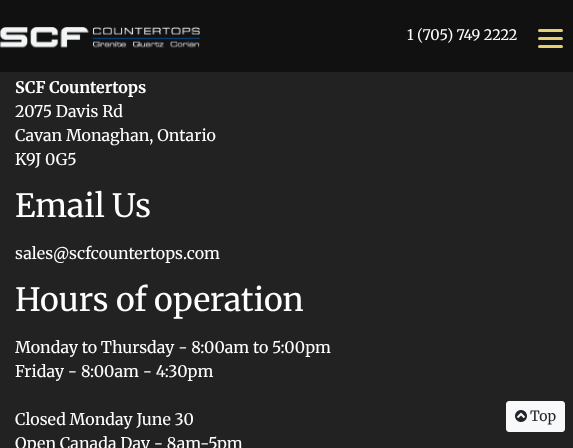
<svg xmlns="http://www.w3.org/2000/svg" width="573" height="448">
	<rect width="100%" height="100%" fill="#222222" />
	<rect x="0" y="0" width="573" height="72" fill="#111111" />
	<image x="0" y="27" width="200" height="21" href="assets/img1.png" />
	<text x="407" y="40" font-family="Merriweather" font-size="14.5" fill="#FFFFFF">1 (705) 749 2222</text>
	<text x="15" y="93" font-family="Merriweather" font-size="16" font-weight="700" fill="#FFFFFF">SCF Countertops</text>
	<g font-family="Merriweather" font-size="16" fill="#FFFFFF">
		<text x="15" y="117">2075 Davis Rd</text>
		<text x="15" y="141">Cavan Monaghan, Ontario</text>
		<text x="15" y="165">K9J 0G5</text>
	</g>
	<text x="15" y="217" font-family="Merriweather" font-size="32" fill="#FFFFFF">Email Us</text>
	<text x="15" y="259" font-family="Merriweather" font-size="16" fill="#FFFFFF">sales@scfcountertops.com</text>
	<text x="15" y="311" font-family="Merriweather" font-size="32" fill="#FFFFFF">Hours of operation</text>
	<g font-family="Merriweather" font-size="16" fill="#FFFFFF">
		<text x="15" y="353">Monday to Thursday - 8:00am to 5:00pm</text>
		<text x="15" y="377">Friday - 8:00am - 4:30pm</text>
		<text x="15" y="425">Closed Monday June 30</text>
		<text x="15" y="449">Open Canada Day - 8am-5pm</text>
	</g>
	<rect x="538" y="45" width="25" height="3" rx="1.5" fill="#E3D06E" />
	<rect x="538" y="29" width="25" height="3" rx="1.5" fill="#E3D06E" />
	<rect x="538" y="37" width="25" height="3" rx="1.5" fill="#E3D06E" />
	<rect x="506.5" y="401.5" width="58" height="30" rx="2.5" fill="#F8F9FA" stroke="#F8F9FA" />
	<image x="515" y="410" width="12" height="12" href="assets/img2.png" />
	<text x="530" y="421" font-family="Merriweather" font-size="14" fill="#212529">Top</text>
</svg>
